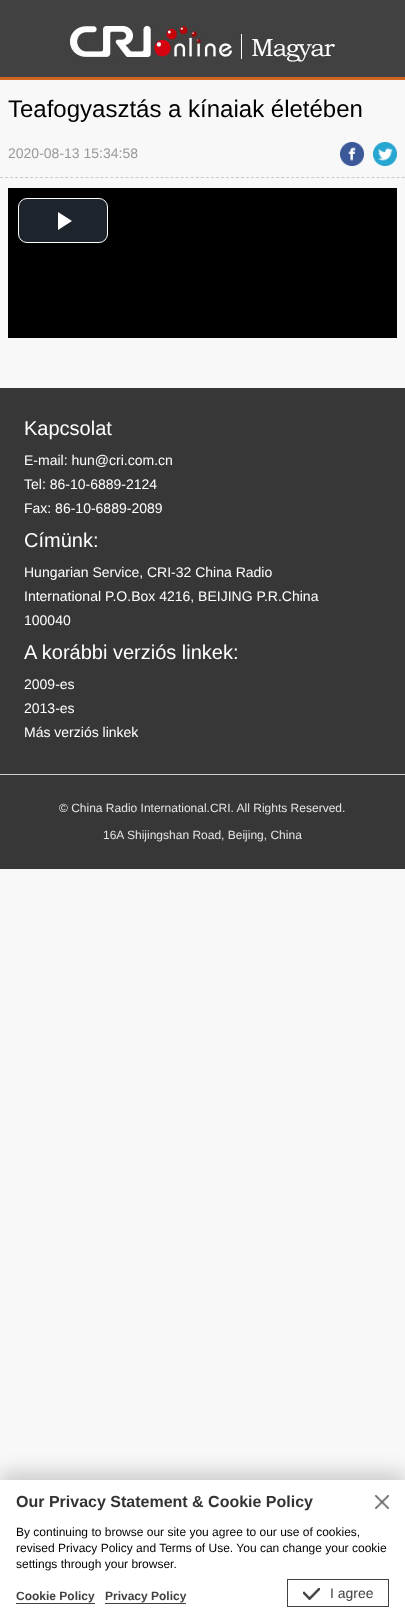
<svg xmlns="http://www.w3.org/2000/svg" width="405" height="1617">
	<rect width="100%" height="100%" fill="#F8F8F8" />
	<rect x="0" y="0" width="405" height="77" fill="#414141" />
	<rect x="0" y="77" width="405" height="3" fill="#D1641F" />
	<image x="70" y="25" width="265" height="37" href="assets/img1.png" />
	<text x="8" y="117" font-family="Liberation Sans" font-size="24" fill="#000000">Teafogyasztás a kínaiak életében</text>
	<path d="M0 177.5H405" fill="none" stroke="#CBCBCB" stroke-dasharray="3 2.02" />
	<text x="8" y="158" font-family="Liberation Sans" font-size="14" fill="#999999">2020-08-13 15:34:58</text>
	<image x="340" y="142" width="24" height="24" href="assets/img2.png" />
	<image x="373" y="142" width="24" height="24" href="assets/img3.png" />
	<rect x="8" y="188" width="389" height="150" fill="#000000" />
	<rect x="18.5" y="198.5" width="89" height="44" rx="8.5" fill="#1E242C" stroke="#FFFFFF" />
	<path d="M58 212V230L72 221Z" fill="#FFFFFF" />
	<rect x="0" y="388" width="405" height="386" fill="#373737" />
	<text x="24" y="435" font-family="Liberation Sans" font-size="20" fill="#FFFFFF">Kapcsolat</text>
	<g font-family="Liberation Sans" font-size="14" fill="#FFFFFF">
		<text x="24" y="465">E-mail: hun@cri.com.cn</text>
		<text x="24" y="489">Tel: 86-10-6889-2124</text>
		<text x="24" y="513">Fax: 86-10-6889-2089</text>
	</g>
	<text x="24" y="547" font-family="Liberation Sans" font-size="20" fill="#FFFFFF">Címünk:</text>
	<g font-family="Liberation Sans" font-size="14" fill="#FFFFFF">
		<text x="24" y="577">Hungarian Service, CRI-32 China Radio</text>
		<text x="24" y="601">International P.O.Box 4216, BEIJING P.R.China</text>
		<text x="24" y="625">100040</text>
	</g>
	<text x="24" y="659" font-family="Liberation Sans" font-size="20" fill="#FFFFFF">A korábbi verziós linkek:</text>
	<g font-family="Liberation Sans" font-size="14" fill="#FFFFFF">
		<text x="24" y="689">2009-es</text>
		<text x="24" y="713">2013-es</text>
		<text x="24" y="737">Más verziós linkek</text>
	</g>
	<rect x="0" y="775" width="405" height="94" fill="#373737" />
	<rect x="0" y="774" width="405" height="1" fill="#CDCDCD" />
	<g font-family="Liberation Sans" font-size="12" fill="#E4E4E4">
		<text x="59" y="812">© China Radio International.CRI. All Rights Reserved.</text>
		<text x="103" y="839">16A Shijingshan Road, Beijing, China</text>
	</g>
	<rect x="0" y="1473" width="405" height="137" fill="#000000" fill-opacity="0.19" filter="blur(10px)" />
	<rect x="0" y="1480" width="405" height="137" fill="#FFFFFF" />
	<text x="16" y="1507" font-family="Liberation Sans" font-size="16" font-weight="700" fill="#333333">Our Privacy Statement &amp; Cookie Policy</text>
	<image x="375" y="1495" width="14" height="14" href="assets/img4.png" />
	<g font-family="Liberation Sans" font-size="12" fill="#000000">
		<text x="16" y="1536">By continuing to browse our site you agree to our use of cookies,</text>
		<text x="16" y="1552">revised Privacy Policy and Terms of Use. You can change your cookie</text>
		<text x="16" y="1568">settings through your browser.</text>
	</g>
	<text x="16" y="1600" font-family="Liberation Sans" font-size="12" font-weight="700" fill="#414141">Cookie Policy</text>
	<rect x="16" y="1603" width="79" height="1" fill="#414141" />
	<text x="105" y="1600" font-family="Liberation Sans" font-size="12" font-weight="700" fill="#414141">Privacy Policy</text>
	<rect x="105" y="1603" width="81" height="1" fill="#414141" />
	<rect x="287.5" y="1579.5" width="101" height="27" fill="none" stroke="#414141" />
	<image x="303" y="1588" width="17" height="12" href="assets/img5.png" />
	<text x="330" y="1598" font-family="Liberation Sans" font-size="14" fill="#414141">I agree</text>
</svg>
